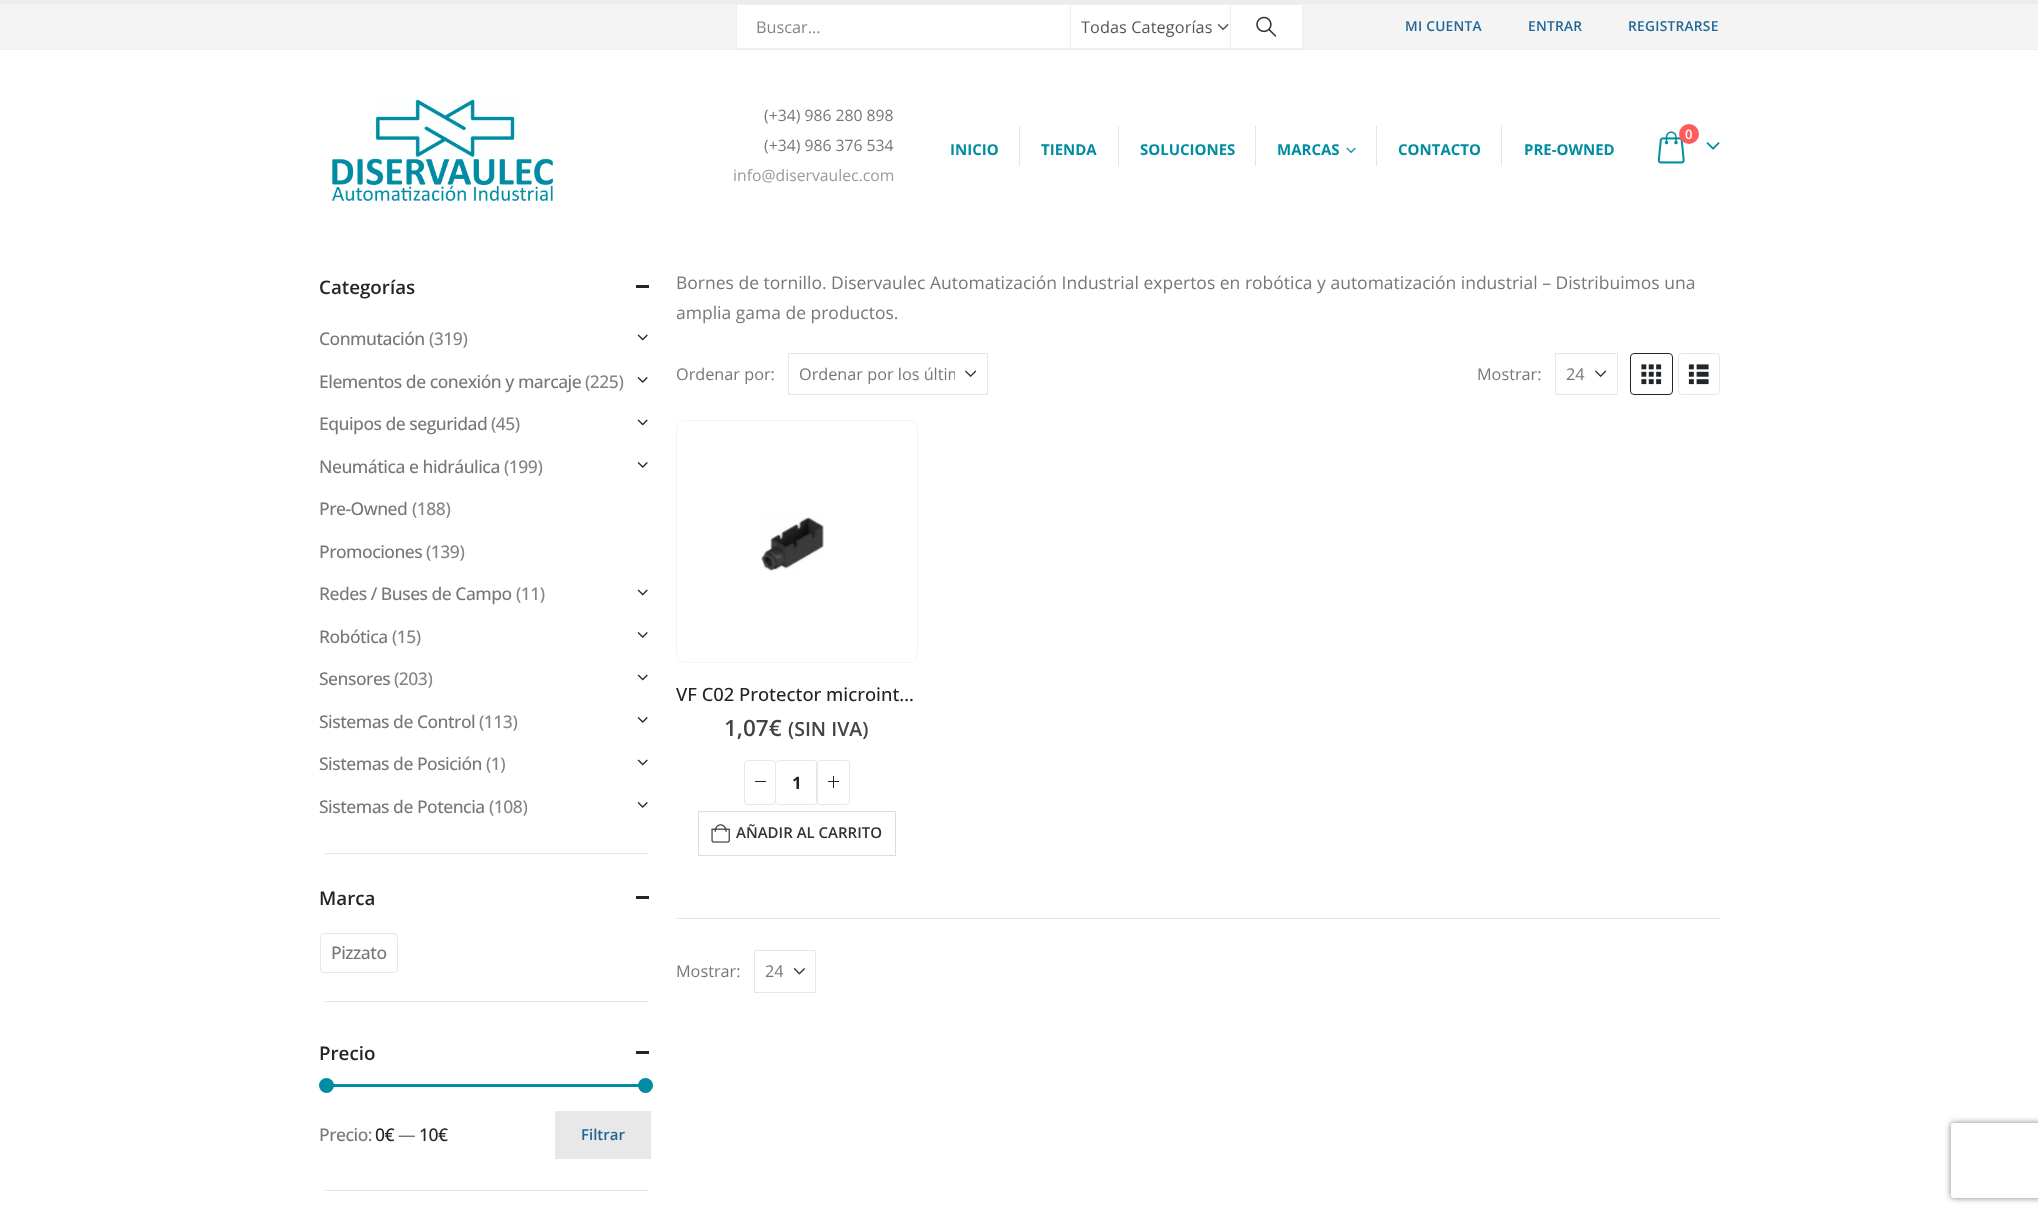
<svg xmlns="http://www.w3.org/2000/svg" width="2038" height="1214">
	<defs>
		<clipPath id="clip1"><rect x="799" y="363" width="156" height="22" /></clipPath>
		<clipPath id="clip2"><path d="M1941 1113H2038V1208H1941ZM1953.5 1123H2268.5C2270 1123 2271 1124 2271 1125.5V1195.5C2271 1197 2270 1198 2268.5 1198H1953.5C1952 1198 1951 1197 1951 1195.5V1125.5C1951 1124 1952 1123 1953.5 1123Z" clip-rule="evenodd" /></clipPath>
	</defs>
	<rect width="100%" height="100%" fill="#FFFFFF" />
	<rect x="0" y="0" width="2038" height="4" fill="#EDEDED" />
	<rect x="0" y="4" width="2038" height="45" fill="#F4F4F4" />
	<rect x="0" y="49" width="2038" height="1" fill="#EDEDED" />
	<rect x="736.5" y="4.5" width="566" height="44" fill="#FFFFFF" stroke="#EEEEEE" />
	<text x="756" y="33" font-family="Open Sans" font-size="16.25" fill="#848484">Buscar...</text>
	<rect x="1230" y="5" width="1" height="43" fill="#EEEEEE" />
	<rect x="1070" y="5" width="1" height="43" fill="#EEEEEE" />
	<text x="1081" y="33" font-family="Open Sans" font-size="16.25" letter-spacing="0.1" fill="#555555">Todas Categorías</text>
	<image x="1217" y="24" width="12" height="7" href="assets/img1.png" />
	<image x="1256" y="16" width="21" height="21" href="assets/img2.png" />
	<g font-family="Open Sans" font-size="13.75" font-weight="600" letter-spacing="0.25" fill="#226698">
		<text x="1405" y="31">MI CUENTA</text>
		<text x="1528" y="31">ENTRAR</text>
		<text x="1628" y="31">REGISTRARSE</text>
	</g>
	<image x="332" y="99" width="221" height="102" href="assets/img3.png" />
	<g font-family="Open Sans" font-size="15.75" fill="#777777">
		<text x="764" y="121">(+34) 986 280 898</text>
		<text x="764" y="151">(+34) 986 376 534</text>
	</g>
	<text x="733" y="181" font-family="Open Sans" font-size="15.75" fill="#999999">info@diservaulec.com</text>
	<image x="1657" y="131" width="28" height="33" href="assets/img4.png" />
	<circle cx="1689" cy="134" r="10" fill="#FF5B5B" />
	<text x="1685" y="139" font-family="Open Sans" font-size="13" font-weight="600" fill="#FFFFFF">0</text>
	<image x="1706" y="142" width="14" height="8" href="assets/img5.png" />
	<rect x="1019" y="126" width="1" height="40" fill="#E6E6E6" />
	<text x="950" y="155" font-family="Open Sans" font-size="15" font-weight="700" fill="#008CA3">INICIO</text>
	<rect x="1118" y="126" width="1" height="40" fill="#E6E6E6" />
	<text x="1041" y="155" font-family="Open Sans" font-size="15" font-weight="700" fill="#008CA3">TIENDA</text>
	<rect x="1255" y="126" width="1" height="40" fill="#E6E6E6" />
	<text x="1140" y="155" font-family="Open Sans" font-size="15" font-weight="700" fill="#008CA3">SOLUCIONES</text>
	<rect x="1376" y="126" width="1" height="40" fill="#E6E6E6" />
	<text x="1277" y="155" font-family="Open Sans" font-size="15" font-weight="700" fill="#008CA3">MARCAS</text>
	<image x="1346" y="147" width="10" height="6" href="assets/img6.png" />
	<rect x="1501" y="126" width="1" height="40" fill="#E6E6E6" />
	<g font-family="Open Sans" font-size="15" font-weight="700" fill="#008CA3">
		<text x="1398" y="155">CONTACTO</text>
		<text x="1524" y="155">PRE-OWNED</text>
	</g>
	<rect x="325" y="853" width="323" height="1" fill="#E7E7E7" />
	<text x="319" y="294" font-family="Open Sans" font-size="18.75" font-weight="600" fill="#222529">Categorías</text>
	<rect x="636" y="285" width="13" height="3" fill="#222529" />
	<text x="319" y="345" font-family="Open Sans" font-size="17.5" font-weight="500" letter-spacing="-0.5" fill="#777777">Conmutación</text>
	<text x="429" y="345" font-family="Open Sans" font-size="17.5" font-weight="500" letter-spacing="-0.5" fill="#848484">(319)</text>
	<image x="637" y="334" width="11" height="7" href="assets/img7.png" />
	<text x="319" y="388" font-family="Open Sans" font-size="17.5" font-weight="500" letter-spacing="-0.5" fill="#777777">Elementos de conexión y marcaje</text>
	<text x="585" y="388" font-family="Open Sans" font-size="17.5" font-weight="500" letter-spacing="-0.5" fill="#848484">(225)</text>
	<image x="637" y="377" width="11" height="6" href="assets/img8.png" />
	<text x="319" y="430" font-family="Open Sans" font-size="17.5" font-weight="500" letter-spacing="-0.5" fill="#777777">Equipos de seguridad</text>
	<text x="491" y="430" font-family="Open Sans" font-size="17.5" font-weight="500" letter-spacing="-0.5" fill="#848484">(45)</text>
	<image x="637" y="419" width="11" height="7" href="assets/img7.png" />
	<text x="319" y="473" font-family="Open Sans" font-size="17.5" font-weight="500" letter-spacing="-0.5" fill="#777777">Neumática e hidráulica</text>
	<text x="504" y="473" font-family="Open Sans" font-size="17.5" font-weight="500" letter-spacing="-0.5" fill="#848484">(199)</text>
	<image x="637" y="462" width="11" height="6" href="assets/img8.png" />
	<text x="319" y="515" font-family="Open Sans" font-size="17.5" font-weight="500" letter-spacing="-0.5" fill="#777777">Pre-Owned</text>
	<text x="412" y="515" font-family="Open Sans" font-size="17.5" font-weight="500" letter-spacing="-0.5" fill="#848484">(188)</text>
	<text x="319" y="558" font-family="Open Sans" font-size="17.5" font-weight="500" letter-spacing="-0.5" fill="#777777">Promociones</text>
	<text x="426" y="558" font-family="Open Sans" font-size="17.5" font-weight="500" letter-spacing="-0.5" fill="#848484">(139)</text>
	<text x="319" y="600" font-family="Open Sans" font-size="17.5" font-weight="500" letter-spacing="-0.5" fill="#777777">Redes / Buses de Campo</text>
	<text x="516" y="600" font-family="Open Sans" font-size="17.5" font-weight="500" letter-spacing="-0.5" fill="#848484">(11)</text>
	<image x="637" y="589" width="11" height="7" href="assets/img7.png" />
	<text x="319" y="643" font-family="Open Sans" font-size="17.5" font-weight="500" letter-spacing="-0.5" fill="#777777">Robótica</text>
	<text x="392" y="643" font-family="Open Sans" font-size="17.5" font-weight="500" letter-spacing="-0.5" fill="#848484">(15)</text>
	<image x="637" y="632" width="11" height="6" href="assets/img8.png" />
	<text x="319" y="685" font-family="Open Sans" font-size="17.5" font-weight="500" letter-spacing="-0.5" fill="#777777">Sensores</text>
	<text x="394" y="685" font-family="Open Sans" font-size="17.5" font-weight="500" letter-spacing="-0.5" fill="#848484">(203)</text>
	<image x="637" y="674" width="11" height="7" href="assets/img7.png" />
	<text x="319" y="728" font-family="Open Sans" font-size="17.5" font-weight="500" letter-spacing="-0.5" fill="#777777">Sistemas de Control</text>
	<text x="479" y="728" font-family="Open Sans" font-size="17.5" font-weight="500" letter-spacing="-0.5" fill="#848484">(113)</text>
	<image x="637" y="717" width="11" height="6" href="assets/img8.png" />
	<text x="319" y="770" font-family="Open Sans" font-size="17.5" font-weight="500" letter-spacing="-0.5" fill="#777777">Sistemas de Posición</text>
	<text x="486" y="770" font-family="Open Sans" font-size="17.5" font-weight="500" letter-spacing="-0.5" fill="#848484">(1)</text>
	<image x="637" y="759" width="11" height="7" href="assets/img7.png" />
	<text x="319" y="813" font-family="Open Sans" font-size="17.5" font-weight="500" letter-spacing="-0.5" fill="#777777">Sistemas de Potencia</text>
	<text x="489" y="813" font-family="Open Sans" font-size="17.5" font-weight="500" letter-spacing="-0.5" fill="#848484">(108)</text>
	<image x="637" y="802" width="11" height="6" href="assets/img8.png" />
	<rect x="325" y="1001" width="323" height="1" fill="#E7E7E7" />
	<text x="319" y="905" font-family="Open Sans" font-size="18.75" font-weight="600" fill="#222529">Marca</text>
	<rect x="636" y="896" width="13" height="3" fill="#222529" />
	<rect x="320.5" y="933.5" width="77" height="39" rx="3.5" fill="none" stroke="#E7E7E7" />
	<text x="331" y="959" font-family="Open Sans" font-size="17.5" font-weight="500" letter-spacing="-0.5" fill="#777777">Pizzato</text>
	<rect x="325" y="1190" width="323" height="1" fill="#E7E7E7" />
	<text x="319" y="1060" font-family="Open Sans" font-size="18.75" font-weight="600" fill="#222529">Precio</text>
	<rect x="636" y="1051" width="13" height="3" fill="#222529" />
	<rect x="326" y="1084" width="319" height="3" fill="#008CA3" />
	<circle cx="326.5" cy="1085.5" r="7.5" fill="#008CA3" />
	<circle cx="645.5" cy="1085.5" r="7.5" fill="#008CA3" />
	<text x="319" y="1141" font-family="Open Sans" font-size="17.5" font-weight="500" letter-spacing="-0.5" fill="#777777">Precio:</text>
	<text x="375" y="1141" font-family="Open Sans" font-size="17.5" font-weight="500" letter-spacing="-0.5" fill="#222529">0€</text>
	<text x="398" y="1141" font-family="Open Sans" font-size="17.5" font-weight="500" letter-spacing="-0.5" fill="#777777">—</text>
	<text x="419" y="1141" font-family="Open Sans" font-size="17.5" font-weight="500" letter-spacing="-0.5" fill="#222529">10€</text>
	<rect x="555" y="1111" width="96" height="48" fill="#E8E8E8" />
	<text x="581" y="1140" font-family="Open Sans" font-size="15" font-weight="600" fill="#226698">Filtrar</text>
	<g font-family="Open Sans" font-size="17.5" fill="#777777">
		<text x="676" y="289">Bornes de tornillo. Diservaulec Automatización Industrial expertos en robótica y automatización industrial – Distribuimos una</text>
		<text x="676" y="319">amplia gama de productos.</text>
	</g>
	<text x="676" y="380" font-family="Open Sans" font-size="16.25" fill="#777777">Ordenar por:</text>
	<image x="965" y="370" width="12" height="8" href="assets/img9.png" />
	<rect x="788.5" y="353.5" width="199" height="41" fill="none" stroke="#E7E7E7" />
	<g clip-path="url(#clip1)">
		<text x="799" y="380" font-family="Open Sans" font-size="16.25" fill="#777777">Ordenar por los últim</text>
	</g>
	<text x="1477" y="380" font-family="Open Sans" font-size="16.25" fill="#777777">Mostrar:</text>
	<image x="1595" y="370" width="12" height="8" href="assets/img9.png" />
	<rect x="1555.5" y="353.5" width="62" height="41" fill="none" stroke="#E7E7E7" />
	<text x="1566" y="380" font-family="Open Sans" font-size="16.25" fill="#777777">24</text>
	<rect x="1630.5" y="353.5" width="42" height="41" rx="3.5" fill="none" stroke="#222529" />
	<image x="1641" y="364" width="21" height="21" href="assets/img10.png" />
	<rect x="1678.5" y="353.5" width="41" height="41" rx="3.5" fill="none" stroke="#E7E7E7" />
	<image x="1688" y="364" width="21" height="21" href="assets/img11.png" />
	<rect x="676.5" y="420.5" width="241" height="242" rx="8.5" fill="none" stroke="#F4F4F4" />
	<image x="761" y="517" width="63" height="54" href="assets/img12.png" />
	<text x="676" y="701" font-family="Open Sans" font-size="18.4" font-weight="500" fill="#222529">VF C02 Protector microint…</text>
	<text x="724" y="736" font-family="Open Sans" font-size="22.5" font-weight="600" fill="#444444">1,07€</text>
	<text x="788" y="736" font-family="Open Sans" font-size="19.5" font-weight="600" fill="#444444">(SIN IVA)</text>
	<rect x="775.5" y="760.5" width="42" height="44" rx="3.5" fill="none" stroke="#E7E7E7" />
	<rect x="744.5" y="760.5" width="31" height="44" rx="3.5" fill="none" stroke="#E7E7E7" />
	<rect x="755" y="781" width="11" height="1" fill="#222529" />
	<text x="792" y="789" font-family="Open Sans" font-size="17" font-weight="700" fill="#222529">1</text>
	<rect x="816.5" y="760.5" width="33" height="44" rx="3.5" fill="none" stroke="#E7E7E7" />
	<rect x="828" y="781" width="11" height="1" fill="#222529" />
	<rect x="833" y="776" width="1" height="12" fill="#222529" />
	<rect x="698.5" y="811.5" width="197" height="44" fill="none" stroke="#DDDDDD" />
	<image x="711" y="824" width="19" height="19" href="assets/img13.png" />
	<text x="736" y="838" font-family="Open Sans" font-size="15" font-weight="600" fill="#333333">AÑADIR AL CARRITO</text>
	<rect x="676" y="918" width="1044" height="1" fill="#E7E7E7" />
	<text x="676" y="977" font-family="Open Sans" font-size="16.25" fill="#777777">Mostrar:</text>
	<image x="793" y="968" width="12" height="7" href="assets/img14.png" />
	<rect x="754.5" y="950.5" width="61" height="42" fill="none" stroke="#E7E7E7" />
	<text x="765" y="977" font-family="Open Sans" font-size="16.25" fill="#777777">24</text>
	<g clip-path="url(#clip2)">
		<rect x="1951" y="1123" width="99" height="75" rx="2.5" fill="#808080" filter="blur(3px)" />
	</g>
</svg>
